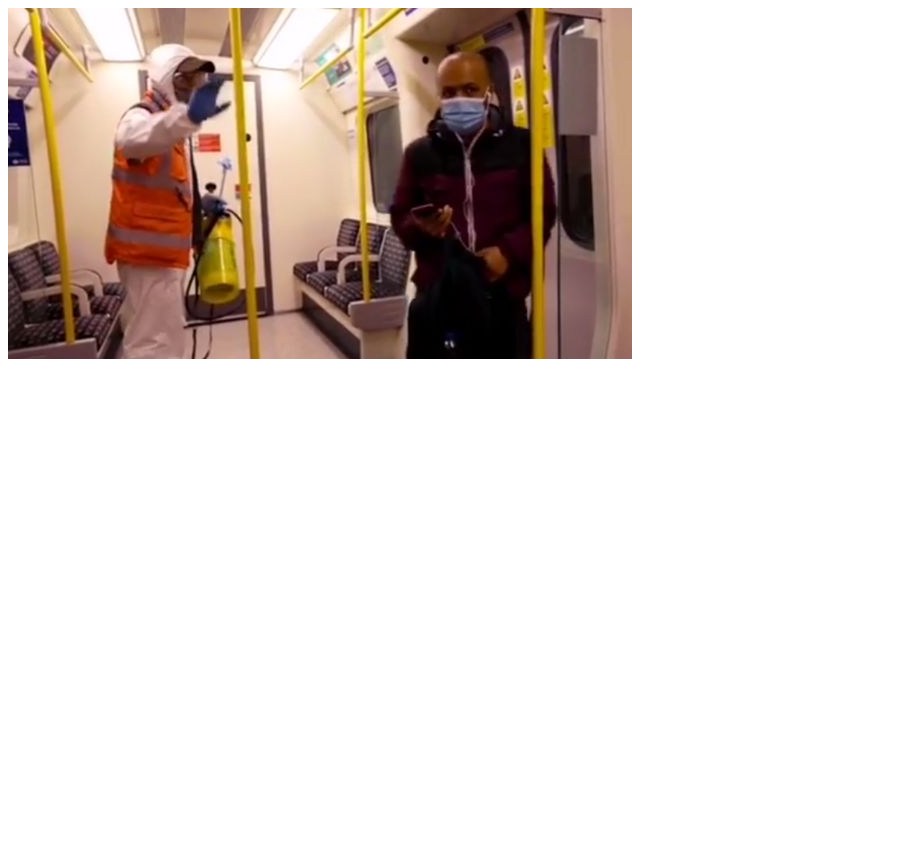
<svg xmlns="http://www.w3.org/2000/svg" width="908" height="860">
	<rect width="100%" height="100%" fill="#FFFFFF" />
	<image x="8" y="8" width="624" height="351" href="assets/img1.png" />
</svg>
